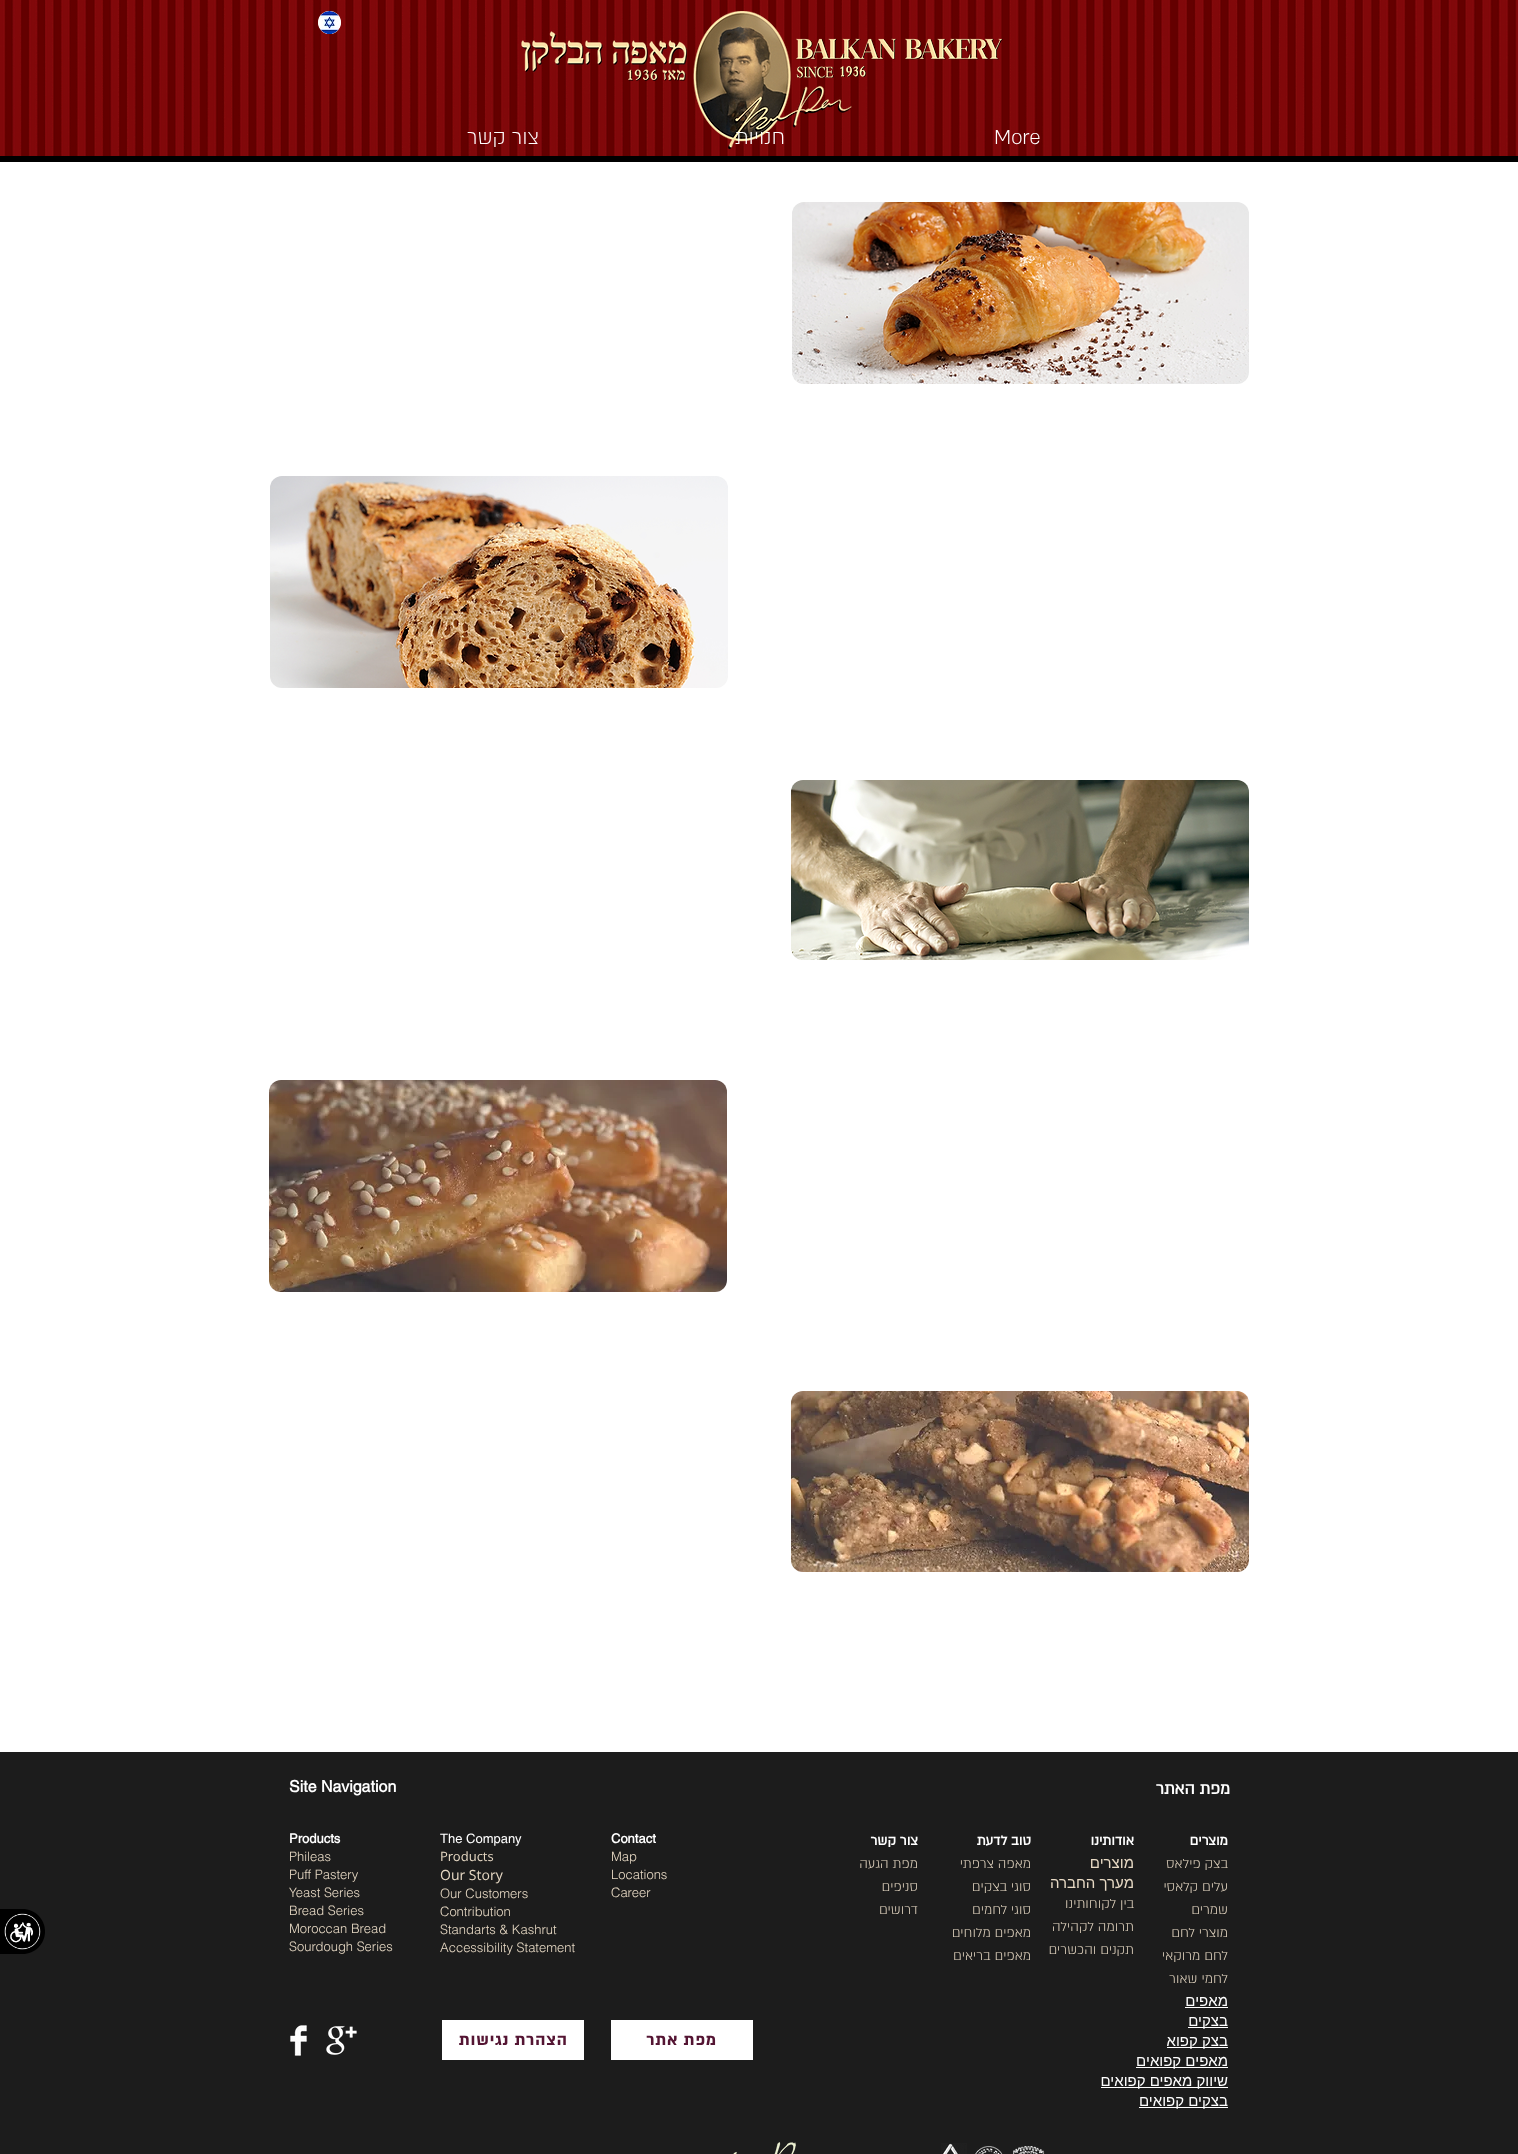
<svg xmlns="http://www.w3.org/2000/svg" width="1518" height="2154">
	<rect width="100%" height="100%" fill="#FFFFFF" />
	<image x="785" y="0" width="733" height="156" href="assets/img1.png" />
	<image x="0" y="0" width="785" height="156" href="assets/img2.png" />
	<image x="693" y="11" width="159" height="138" href="assets/img4.png" />
	<image x="796" y="38" width="207" height="40" href="assets/img3.png" />
	<image x="521" y="30" width="166" height="51" href="assets/img5.png" />
	<circle cx="329.5" cy="22.5" r="11.5" fill="#FFFFFF" />
	<image x="318" y="11" width="23" height="23" href="assets/img6.png" />
	<rect x="0" y="156" width="1518" height="6" fill="#000000" />
	<text x="994" y="144" font-family="'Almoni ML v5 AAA'" font-size="23" font-weight="300" fill="#FFFFFF">More</text>
	<g font-family="'Almoni ML v5 AAA'" font-size="23" font-weight="300" direction="rtl" fill="#FFFFFF">
		<text x="785" y="144">חנויות</text>
		<text x="539" y="144">צור קשר</text>
	</g>
	<image x="792" y="202" width="457" height="182" href="assets/img7.png" />
	<image x="270" y="476" width="458" height="212" href="assets/img8.png" />
	<image x="791" y="780" width="458" height="180" href="assets/img9.png" />
	<image x="269" y="1080" width="458" height="212" href="assets/img10.png" />
	<image x="791" y="1391" width="458" height="181" href="assets/img11.png" />
	<rect x="0" y="1752" width="1518" height="402" fill="#1C1C1C" />
	<text x="1230" y="1794" font-family="'Almoni ML v5 AAA'" font-size="18" font-weight="700" direction="rtl" fill="#FFFFFF">מפת האתר</text>
	<text x="289" y="1792" font-family="helvetica" font-size="16" font-weight="700" fill="#FFFFFF">Site Navigation</text>
	<text x="1228" y="1845" font-family="'Almoni ML v5 AAA'" font-size="15" font-weight="700" direction="rtl" fill="#FFFFFF">מוצרים</text>
	<g font-family="'Almoni ML v5 AAA'" font-size="15" font-weight="300" direction="rtl" fill="#E7D9C4">
		<text x="1228" y="1868">בצק פילאס</text>
		<text x="1228" y="1891">עלים קלאסי</text>
		<text x="1228" y="1914">שמרים</text>
		<text x="1228" y="1937">מוצרי לחם</text>
		<text x="1228" y="1960">לחם מרוקאי</text>
		<text x="1228" y="1983">לחמי שאור</text>
	</g>
	<text x="1228" y="2006" font-family="Liberation Sans" font-size="15" direction="rtl" fill="#FFFFFF">מאפים</text>
	<rect x="1185" y="2007" width="43" height="1" fill="#FFFFFF" />
	<rect x="1188" y="2027" width="40" height="1" fill="#FFFFFF" />
	<text x="1228" y="2026" font-family="Liberation Sans" font-size="15" direction="rtl" fill="#FFFFFF">בצקים</text>
	<rect x="1167" y="2047" width="61" height="1" fill="#FFFFFF" />
	<text x="1228" y="2046" font-family="Liberation Sans" font-size="15" direction="rtl" fill="#FFFFFF">בצק קפוא</text>
	<rect x="1136" y="2067" width="92" height="1" fill="#FFFFFF" />
	<text x="1228" y="2066" font-family="Liberation Sans" font-size="15" direction="rtl" fill="#FFFFFF">מאפים קפואים</text>
	<rect x="1101" y="2087" width="127" height="1" fill="#FFFFFF" />
	<text x="1228" y="2086" font-family="Liberation Sans" font-size="15" direction="rtl" fill="#FFFFFF">שיווק מאפים קפואים</text>
	<rect x="1139" y="2107" width="89" height="1" fill="#FFFFFF" />
	<text x="1228" y="2106" font-family="Liberation Sans" font-size="15" direction="rtl" fill="#FFFFFF">בצקים קפואים</text>
	<text x="1134" y="1845" font-family="'Almoni ML v5 AAA'" font-size="15" font-weight="700" direction="rtl" fill="#FFFFFF">אודותינו</text>
	<g font-family="Liberation Sans" font-size="15" direction="rtl" fill="#E7D9C4">
		<text x="1134" y="1868">מוצרים</text>
		<text x="1134" y="1888">מערך החברה</text>
	</g>
	<g font-family="'Almoni ML v5 AAA'" font-size="15" font-weight="300" direction="rtl" fill="#E7D9C4">
		<text x="1134" y="1908">בין לקוחותינו</text>
		<text x="1134" y="1931">תרומה לקהילה</text>
		<text x="1134" y="1954">תקנים והכשרים</text>
	</g>
	<text x="1031" y="1845" font-family="'Almoni ML v5 AAA'" font-size="15" font-weight="700" direction="rtl" fill="#FFFFFF">טוב לדעת</text>
	<g font-family="'Almoni ML v5 AAA'" font-size="15" font-weight="300" direction="rtl" fill="#E7D9C4">
		<text x="1031" y="1868">מאפה צרפתי</text>
		<text x="1031" y="1891">סוגי בצקים</text>
		<text x="1031" y="1914">סוגי לחמים</text>
		<text x="1031" y="1937">מאפים מלוחים</text>
		<text x="1031" y="1960">מאפים בריאים</text>
	</g>
	<text x="918" y="1845" font-family="'Almoni ML v5 AAA'" font-size="15" font-weight="700" direction="rtl" fill="#FFFFFF">צור קשר</text>
	<g font-family="'Almoni ML v5 AAA'" font-size="15" font-weight="300" direction="rtl" fill="#E7D9C4">
		<text x="918" y="1868">מפת הגעה</text>
		<text x="918" y="1891">סניפים</text>
		<text x="918" y="1914">דרושים</text>
	</g>
	<text x="611" y="1843" font-family="helvetica" font-size="13" font-weight="700" fill="#FFFFFF">Contact</text>
	<g font-family="helvetica" font-size="13" font-weight="300" fill="#E7D9C4">
		<text x="611" y="1861">Map</text>
		<text x="611" y="1879">Locations</text>
		<text x="611" y="1897">Career</text>
	</g>
	<text x="440" y="1843" font-family="helvetica" font-size="13" fill="#FFFFFF">The Company</text>
	<text x="440" y="1861" font-family="Open Sans" font-size="13" fill="#E7D9C4">Products</text>
	<text x="440" y="1880" font-family="Open Sans" font-size="14" fill="#E7D9C4">Our Story</text>
	<g font-family="helvetica" font-size="13" font-weight="300" fill="#E7D9C4">
		<text x="440" y="1898">Our Customers</text>
		<text x="440" y="1916">Contribution</text>
		<text x="440" y="1934">Standarts &amp; Kashrut</text>
		<text x="440" y="1952">Accessibility Statement</text>
	</g>
	<text x="289" y="1843" font-family="helvetica" font-size="13" font-weight="700" fill="#FFFFFF">Products</text>
	<g font-family="helvetica" font-size="13" font-weight="300" fill="#E7D9C4">
		<text x="289" y="1861">Phileas</text>
		<text x="289" y="1879">Puff Pastery</text>
		<text x="289" y="1897">Yeast Series</text>
		<text x="289" y="1915">Bread Series</text>
		<text x="289" y="1933">Moroccan Bread</text>
		<text x="289" y="1951">Sourdough Series</text>
	</g>
	<rect x="611" y="2020" width="142" height="40" fill="#FFFFFF" />
	<text x="717" y="2045" font-family="'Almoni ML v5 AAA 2'" font-size="18" font-weight="700" letter-spacing="0.9" direction="rtl" fill="#541533">מפת אתר</text>
	<rect x="442" y="2020" width="142" height="40" fill="#FFFFFF" />
	<text x="568" y="2045" font-family="'Almoni ML v5 AAA 2'" font-size="18" font-weight="700" letter-spacing="0.9" direction="rtl" fill="#541533">הצהרת נגישות</text>
	<image x="326" y="2025" width="31" height="30" href="assets/img12.png" />
	<image x="290" y="2025" width="17" height="31" href="assets/img13.png" />
	<image x="941" y="2143" width="104" height="11" href="assets/img14.png" />
	<image x="733" y="2142" width="63" height="12" href="assets/img15.png" />
	<path d="M0 1909H22.5C35 1909 45 1919 45 1931.5C45 1944 35 1954 22.5 1954H0Z" fill="#000000" />
	<image x="4" y="1913" width="37" height="37" href="assets/img16.png" />
</svg>
